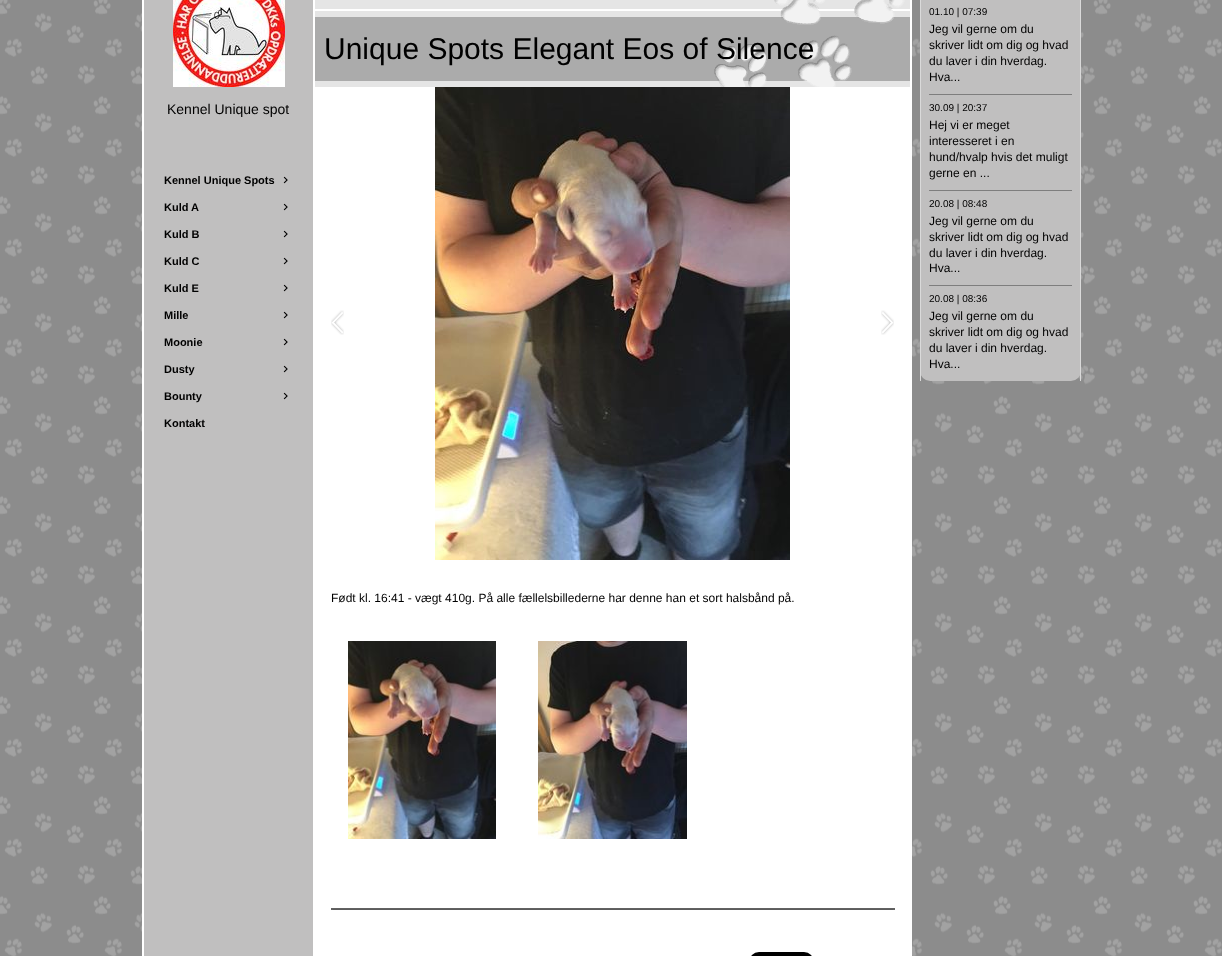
<svg xmlns="http://www.w3.org/2000/svg" width="1222" height="956">
	<rect width="100%" height="100%" fill="#8C8C8C" />
	<image x="0" y="0" width="1222" height="956" href="assets/img1.png" />
	<rect x="142" y="0" width="770" height="956" fill="#FFFFFF" />
	<rect x="144" y="0" width="169" height="956" fill="#C0BFBF" />
	<image x="173" y="0" width="112" height="87" href="assets/img2.png" />
	<text x="167" y="114" font-family="Liberation Sans" font-size="14" fill="#000000">Kennel Unique spot</text>
	<rect x="315" y="0" width="595" height="87" fill="#E5E5E5" />
	<image x="315" y="0" width="595" height="87" href="assets/img3.png" />
	<text x="324" y="59" font-family="Liberation Sans" font-size="30" fill="#000000">Unique Spots Elegant Eos of Silence</text>
	<image x="435" y="87" width="355" height="473" href="assets/img4.png" />
	<image x="331" y="310" width="13" height="25" href="assets/img5.png" />
	<image x="881" y="310" width="13" height="25" href="assets/img6.png" />
	<text x="331" y="602" font-family="Liberation Sans" font-size="12" fill="#000000">Født kl. 16:41 - vægt 410g. På alle fællelsbillederne har denne han et sort halsbånd på.</text>
	<image x="348" y="641" width="148" height="198" href="assets/img7.png" />
	<image x="538" y="641" width="149" height="198" href="assets/img8.png" />
	<image x="331" y="908" width="564" height="2" href="assets/img9.png" />
	<image x="751" y="952" width="61" height="4" href="assets/img10.png" />
	<rect x="920" y="-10" width="161" height="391" rx="10" fill="#C0BFBF" />
	<rect x="1080" y="0" width="1" height="381" fill="#DADADA" />
	<rect x="920" y="0" width="1" height="381" fill="#DADADA" />
	<text x="929" y="15" font-family="Liberation Sans" font-size="10" fill="#000000">01.10 | 07:39</text>
	<g font-family="Liberation Sans" font-size="12" fill="#000000">
		<text x="929" y="33">Jeg vil gerne om du</text>
		<text x="929" y="49">skriver lidt om dig og hvad</text>
		<text x="929" y="65">du laver i din hverdag.</text>
		<text x="929" y="81">Hva...</text>
	</g>
	<image x="929" y="94" width="143" height="1" href="assets/img11.png" />
	<text x="929" y="111" font-family="Liberation Sans" font-size="10" fill="#000000">30.09 | 20:37</text>
	<g font-family="Liberation Sans" font-size="12" fill="#000000">
		<text x="929" y="129">Hej vi er meget</text>
		<text x="929" y="145">interesseret i en</text>
		<text x="929" y="161">hund/hvalp hvis det muligt</text>
		<text x="929" y="177">gerne en ...</text>
	</g>
	<image x="929" y="190" width="143" height="1" href="assets/img11.png" />
	<text x="929" y="207" font-family="Liberation Sans" font-size="10" fill="#000000">20.08 | 08:48</text>
	<g font-family="Liberation Sans" font-size="12" fill="#000000">
		<text x="929" y="225">Jeg vil gerne om du</text>
		<text x="929" y="241">skriver lidt om dig og hvad</text>
		<text x="929" y="257">du laver i din hverdag.</text>
		<text x="929" y="272">Hva...</text>
	</g>
	<image x="929" y="285" width="143" height="1" href="assets/img11.png" />
	<text x="929" y="302" font-family="Liberation Sans" font-size="10" fill="#000000">20.08 | 08:36</text>
	<g font-family="Liberation Sans" font-size="12" fill="#000000">
		<text x="929" y="320">Jeg vil gerne om du</text>
		<text x="929" y="336">skriver lidt om dig og hvad</text>
		<text x="929" y="352">du laver i din hverdag.</text>
		<text x="929" y="368">Hva...</text>
	</g>
	<text x="164" y="184" font-family="Liberation Sans" font-size="11" font-weight="700" fill="#000000">Kennel Unique Spots</text>
	<image x="283" y="176" width="5" height="8" href="assets/img12.png" />
	<text x="164" y="211" font-family="Liberation Sans" font-size="11" font-weight="700" fill="#000000">Kuld A</text>
	<image x="283" y="203" width="5" height="8" href="assets/img12.png" />
	<text x="164" y="238" font-family="Liberation Sans" font-size="11" font-weight="700" fill="#000000">Kuld B</text>
	<image x="283" y="230" width="5" height="8" href="assets/img12.png" />
	<text x="164" y="265" font-family="Liberation Sans" font-size="11" font-weight="700" fill="#000000">Kuld C</text>
	<image x="283" y="257" width="5" height="8" href="assets/img12.png" />
	<text x="164" y="292" font-family="Liberation Sans" font-size="11" font-weight="700" fill="#000000">Kuld E</text>
	<image x="283" y="284" width="5" height="8" href="assets/img12.png" />
	<text x="164" y="319" font-family="Liberation Sans" font-size="11" font-weight="700" fill="#000000">Mille</text>
	<image x="283" y="311" width="5" height="8" href="assets/img12.png" />
	<text x="164" y="346" font-family="Liberation Sans" font-size="11" font-weight="700" fill="#000000">Moonie</text>
	<image x="283" y="338" width="5" height="8" href="assets/img12.png" />
	<text x="164" y="373" font-family="Liberation Sans" font-size="11" font-weight="700" fill="#000000">Dusty</text>
	<image x="283" y="365" width="5" height="8" href="assets/img12.png" />
	<text x="164" y="400" font-family="Liberation Sans" font-size="11" font-weight="700" fill="#000000">Bounty</text>
	<image x="283" y="392" width="5" height="8" href="assets/img12.png" />
	<text x="164" y="427" font-family="Liberation Sans" font-size="11" font-weight="700" fill="#000000">Kontakt</text>
</svg>
